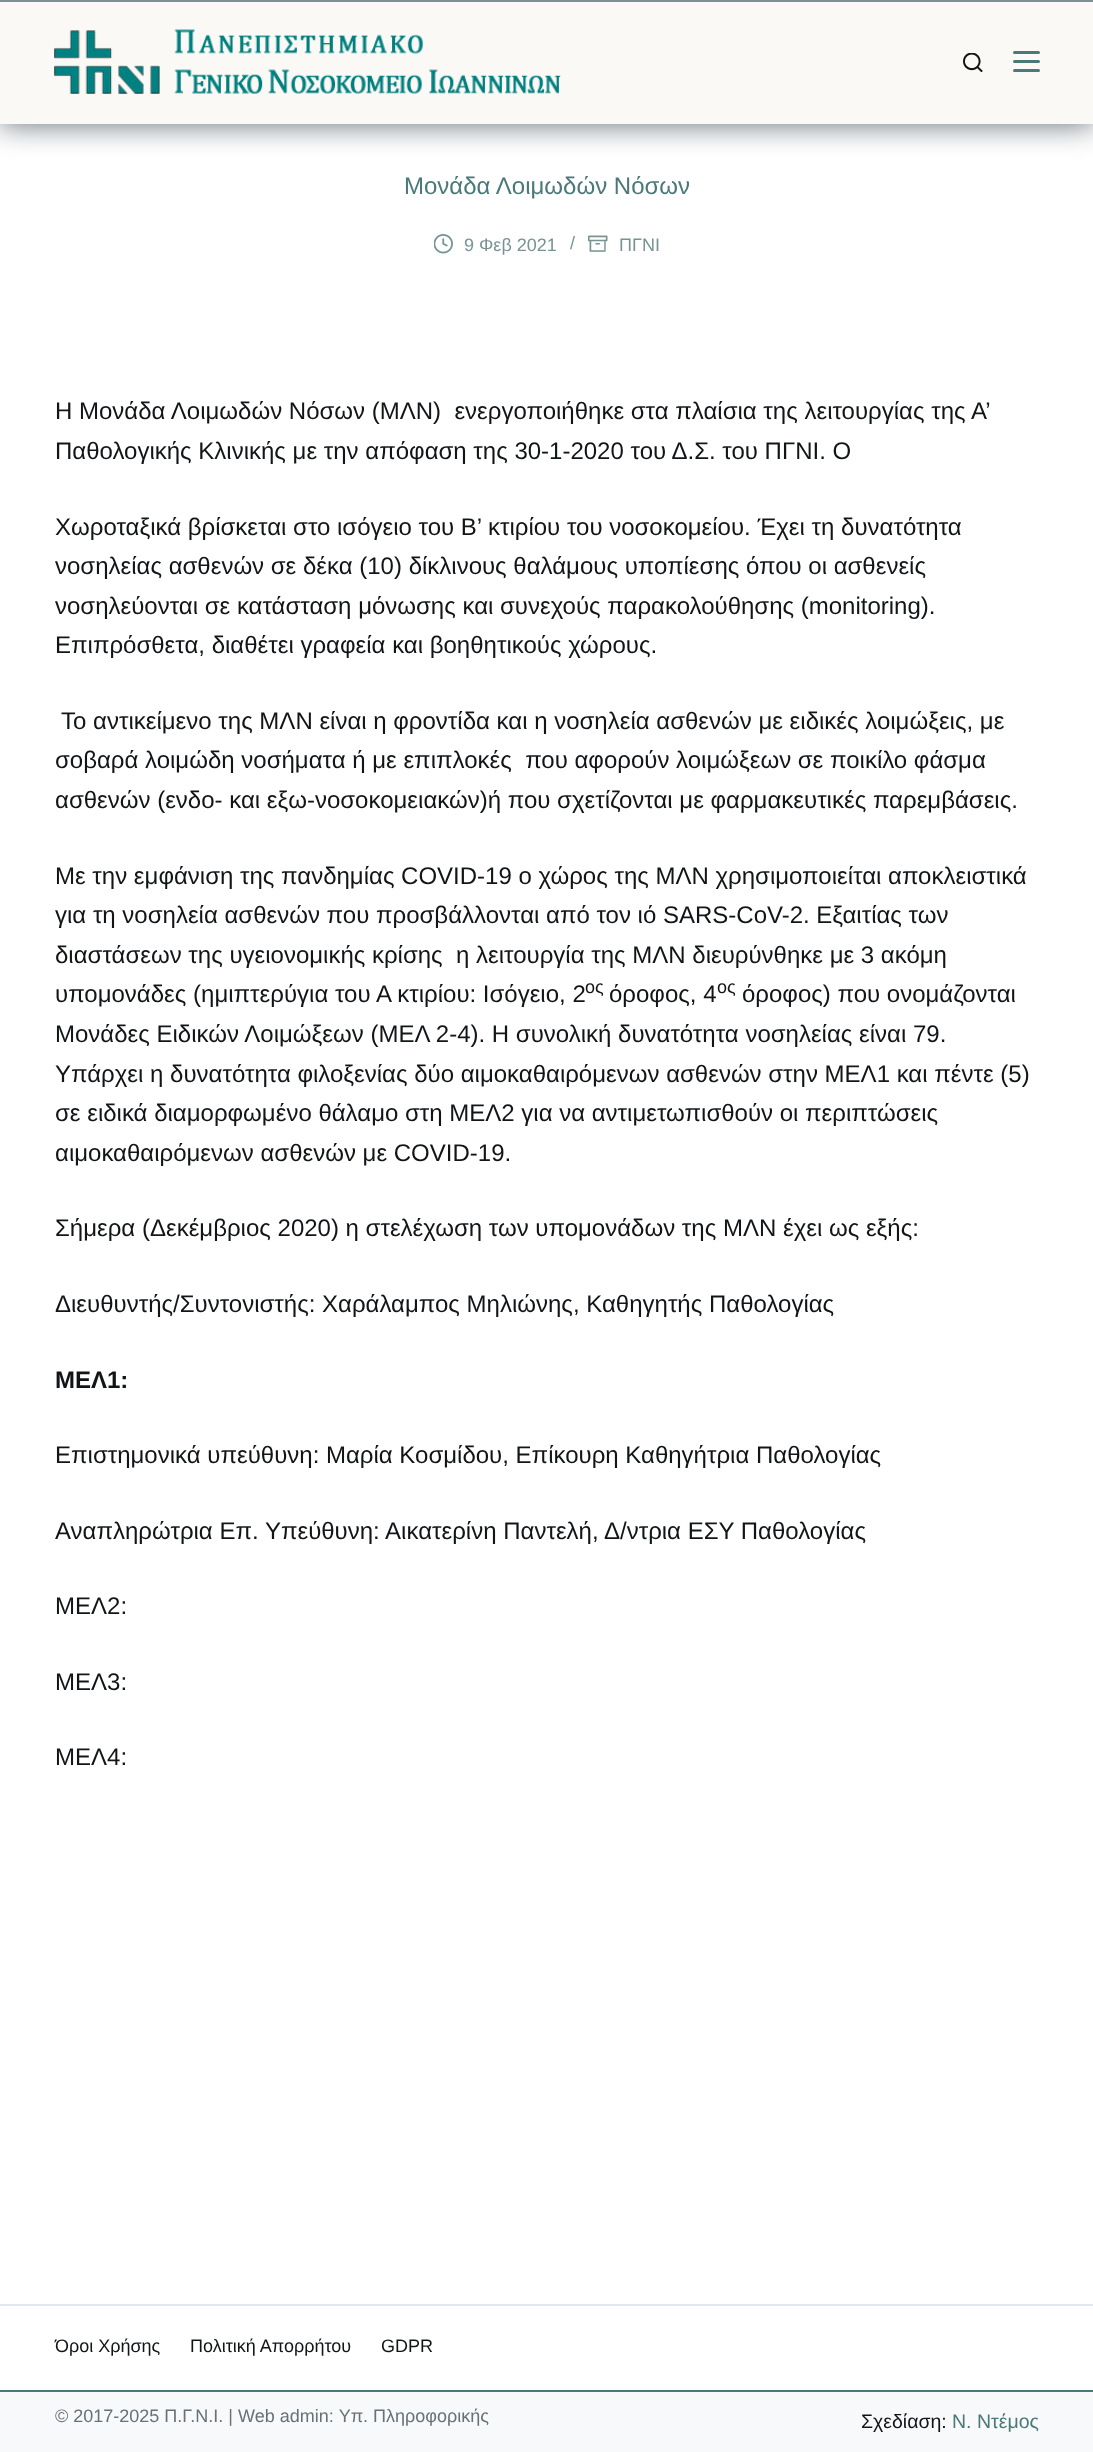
<svg xmlns="http://www.w3.org/2000/svg" width="1093" height="2452">
	<rect width="100%" height="100%" fill="#FFFFFF" />
	<rect x="0" y="2" width="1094" height="123" fill="#677178" filter="blur(15px)" />
	<rect x="0" y="2" width="1093" height="120" fill="#FAF9F5" />
	<rect x="0" y="0" width="1093" height="2" fill="#779393" />
	<rect x="0" y="122" width="1093" height="2" fill="#F8F9FB" />
	<image x="54" y="29" width="507" height="65" href="assets/img1.png" />
	<image x="963" y="53" width="20" height="19" href="assets/img2.png" />
	<rect x="1013" y="51" width="27" height="3" rx="1.5" fill="#4B7878" />
	<rect x="1013" y="60" width="27" height="3" rx="1.5" fill="#4B7878" />
	<rect x="1013" y="69" width="27" height="3" rx="1.5" fill="#4B7878" />
	<text x="404" y="194" font-family="Liberation Sans" font-size="24" fill="#4B7878">Μονάδα Λοιμωδών Νόσων</text>
	<image x="434" y="234" width="19" height="20" href="assets/img3.png" />
	<g font-family="Liberation Sans" font-size="18" fill="#779393">
		<text x="464" y="251">9 Φεβ 2021</text>
		<text x="570" y="249">/</text>
	</g>
	<image x="588" y="235" width="20" height="17" href="assets/img4.png" />
	<text x="619" y="251" font-family="Liberation Sans" font-size="18" fill="#779393">ΠΓΝΙ</text>
	<g font-family="Liberation Sans" font-size="24" fill="#111518">
		<text x="55" y="419" xml:space="preserve">Η Μονάδα Λοιμωδών Νόσων (ΜΛΝ)  ενεργοποιήθηκε στα πλαίσια της λειτουργίας της Α’</text>
		<text x="55" y="459">Παθολογικής Κλινικής με την απόφαση της 30-1-2020 του Δ.Σ. του ΠΓΝΙ. Ο</text>
		<text x="55" y="535">Χωροταξικά βρίσκεται στο ισόγειο του Β’ κτιρίου του νοσοκομείου. Έχει τη δυνατότητα</text>
		<text x="55" y="574">νοσηλείας ασθενών σε δέκα (10) δίκλινους θαλάμους υποπίεσης όπου οι ασθενείς</text>
		<text x="55" y="614">νοσηλεύονται σε κατάσταση μόνωσης και συνεχούς παρακολούθησης (monitoring).</text>
		<text x="55" y="653">Επιπρόσθετα, διαθέτει γραφεία και βοηθητικούς χώρους.</text>
		<text x="61" y="729">Το αντικείμενο της ΜΛΝ είναι η φροντίδα και η νοσηλεία ασθενών με ειδικές λοιμώξεις, με</text>
		<text x="55" y="768" xml:space="preserve">σοβαρά λοιμώδη νοσήματα ή με επιπλοκές  που αφορούν λοιμώξεων σε ποικίλο φάσμα</text>
		<text x="55" y="808">ασθενών (ενδο- και εξω-νοσοκομειακών)ή που σχετίζονται με φαρμακευτικές παρεμβάσεις.</text>
		<text x="55" y="884">Με την εμφάνιση της πανδημίας COVID-19 ο χώρος της ΜΛΝ χρησιμοποιείται αποκλειστικά</text>
		<text x="55" y="923">για τη νοσηλεία ασθενών που προσβάλλονται από τον ιό SARS-CoV-2. Εξαιτίας των</text>
		<text x="55" y="963" xml:space="preserve">διαστάσεων της υγειονομικής κρίσης  η λειτουργία της ΜΛΝ διευρύνθηκε με 3 ακόμη</text>
		<text x="55" y="1002">υπομονάδες (ημιπτερύγια του Α κτιρίου: Ισόγειο, 2</text>
	</g>
	<text x="585" y="993" font-family="Liberation Sans" font-size="18" fill="#111518">ος</text>
	<text x="609" y="1002" font-family="Liberation Sans" font-size="24" fill="#111518">όροφος, 4</text>
	<text x="717" y="993" font-family="Liberation Sans" font-size="18" fill="#111518">ος</text>
	<g font-family="Liberation Sans" font-size="24" fill="#111518">
		<text x="742" y="1002">όροφος) που ονομάζονται</text>
		<text x="55" y="1042">Μονάδες Ειδικών Λοιμώξεων (ΜΕΛ 2-4). Η συνολική δυνατότητα νοσηλείας είναι 79.</text>
		<text x="55" y="1082">Υπάρχει η δυνατότητα φιλοξενίας δύο αιμοκαθαιρόμενων ασθενών στην ΜΕΛ1 και πέντε (5)</text>
		<text x="55" y="1121">σε ειδικά διαμορφωμένο θάλαμο στη ΜΕΛ2 για να αντιμετωπισθούν οι περιπτώσεις</text>
		<text x="55" y="1161">αιμοκαθαιρόμενων ασθενών με COVID-19.</text>
		<text x="55" y="1236">Σήμερα (Δεκέμβριος 2020) η στελέχωση των υπομονάδων της ΜΛΝ έχει ως εξής:</text>
		<text x="55" y="1312">Διευθυντής/Συντονιστής: Χαράλαμπος Μηλιώνης, Καθηγητής Παθολογίας</text>
	</g>
	<text x="55" y="1388" font-family="Liberation Sans" font-size="24" font-weight="700" fill="#111518">ΜΕΛ1:</text>
	<g font-family="Liberation Sans" font-size="24" fill="#111518">
		<text x="55" y="1463">Επιστημονικά υπεύθυνη: Μαρία Κοσμίδου, Επίκουρη Καθηγήτρια Παθολογίας</text>
		<text x="55" y="1539">Αναπληρώτρια Επ. Υπεύθυνη: Αικατερίνη Παντελή, Δ/ντρια ΕΣΥ Παθολογίας</text>
		<text x="55" y="1614">ΜΕΛ2:</text>
		<text x="55" y="1690">ΜΕΛ3:</text>
		<text x="55" y="1765">ΜΕΛ4:</text>
	</g>
	<rect x="0" y="2304" width="1093" height="2" fill="#E2E7ED" />
	<g font-family="Liberation Sans" font-size="18" fill="#111518">
		<text x="55" y="2352">Όροι Χρήσης</text>
		<text x="190" y="2352">Πολιτική Απορρήτου</text>
		<text x="381" y="2352">GDPR</text>
	</g>
	<rect x="0" y="2392" width="1093" height="60" fill="#F8F9FB" />
	<rect x="0" y="2390" width="1093" height="2" fill="#4B7878" />
	<text x="55" y="2422" font-family="Liberation Sans" font-size="18" fill="#677178">© 2017-2025 Π.Γ.Ν.Ι. | Web admin: Υπ. Πληροφορικής</text>
	<text x="861" y="2428" font-family="Liberation Sans" font-size="19.5" fill="#111518">Σχεδίαση:</text>
	<text x="952" y="2428" font-family="Liberation Sans" font-size="19.5" fill="#4B7878">Ν. Ντέμος</text>
</svg>
